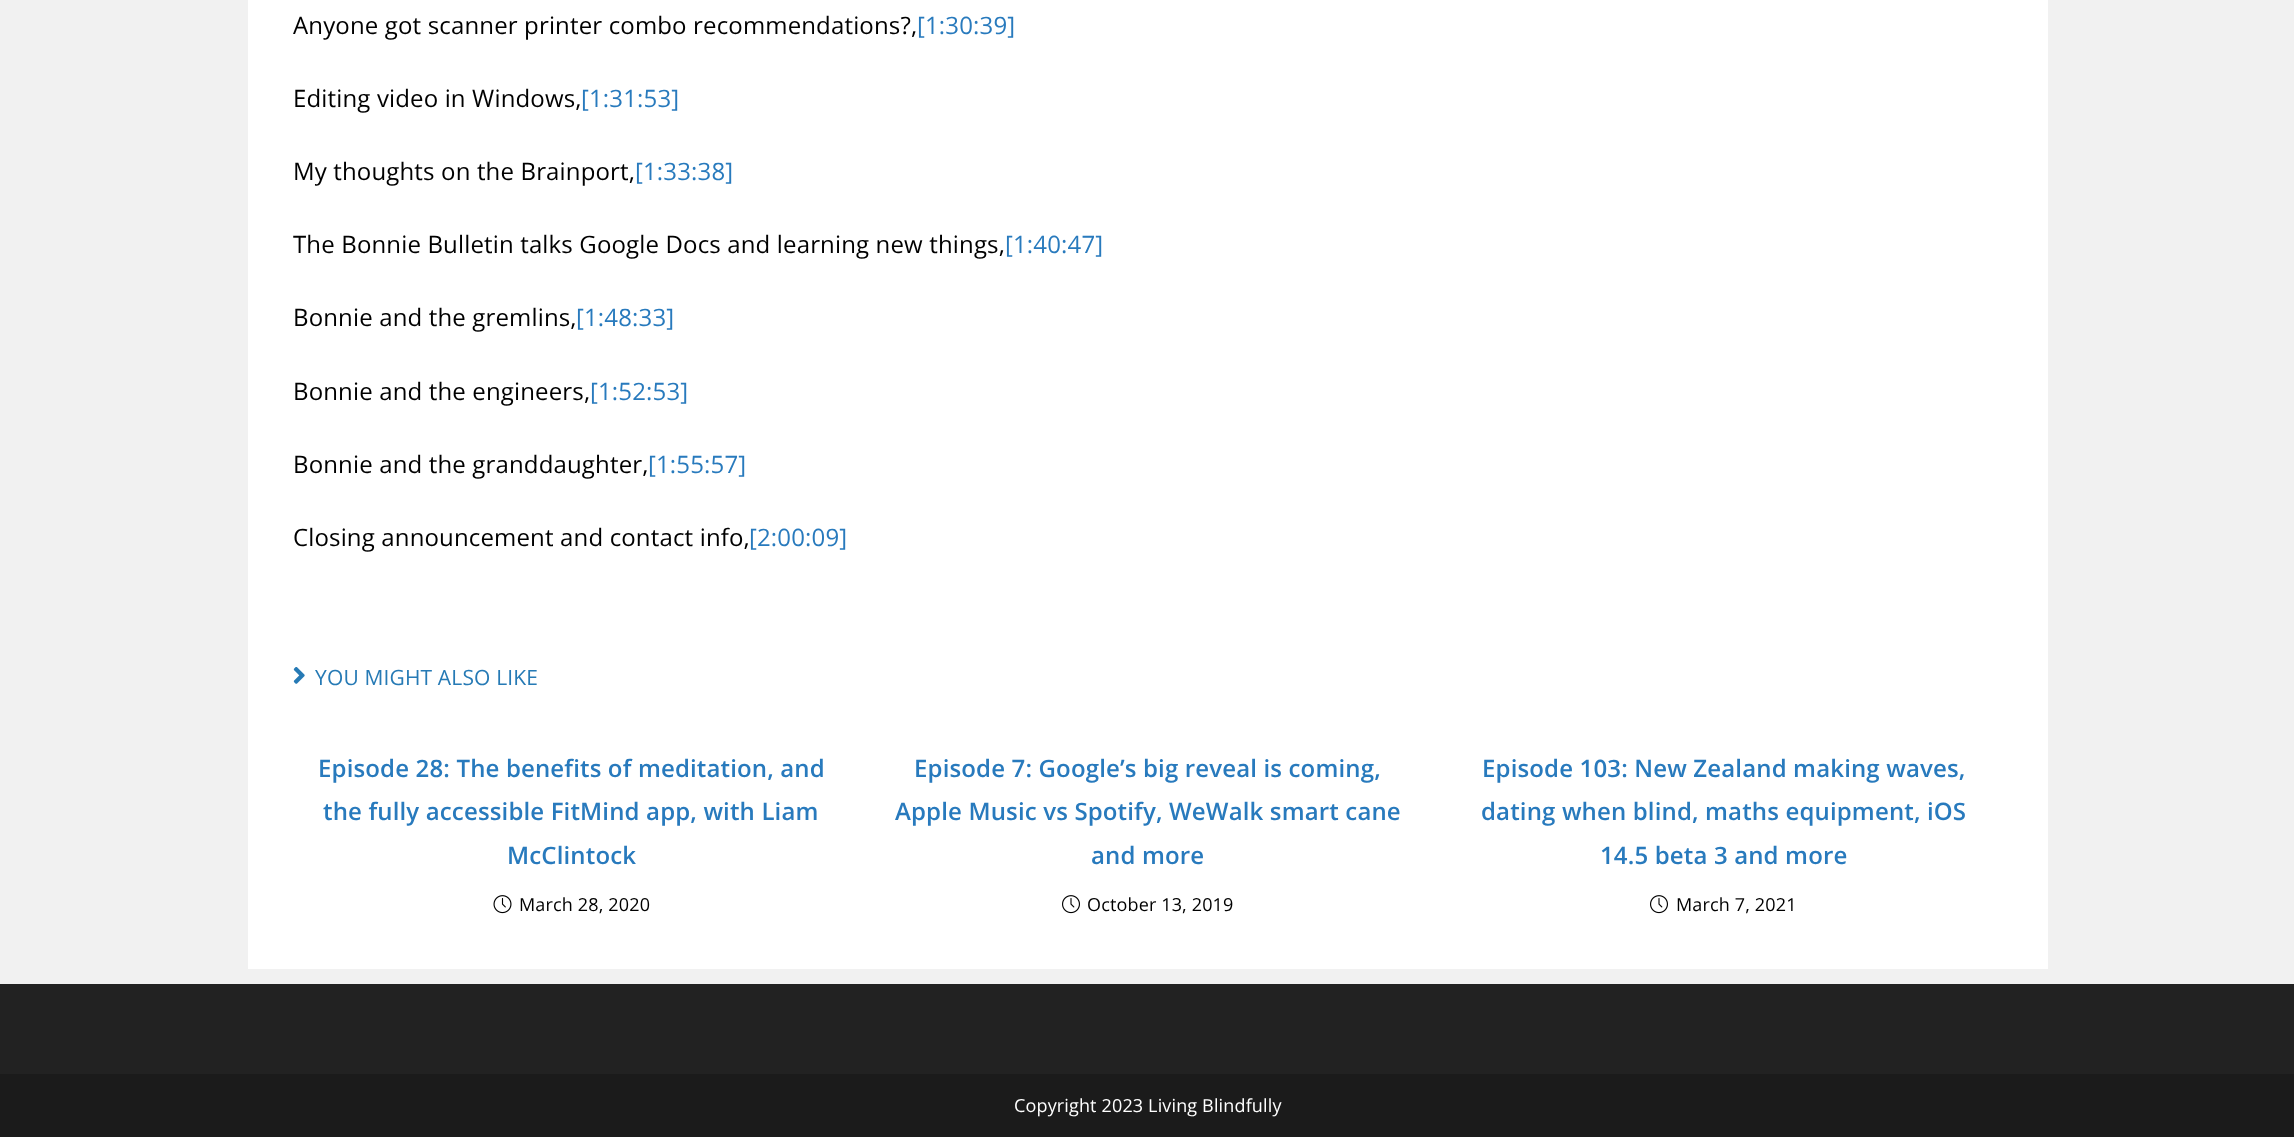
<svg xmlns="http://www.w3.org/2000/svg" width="2294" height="1137">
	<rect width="100%" height="100%" fill="#F1F1F1" />
	<rect x="248" y="0" width="1800" height="969" fill="#FFFFFF" />
	<text x="293" y="34" font-family="Open Sans" font-size="24" letter-spacing="0.15" fill="#000000">Anyone got scanner printer combo recommendations?,</text>
	<text x="917" y="34" font-family="Open Sans" font-size="24" letter-spacing="0.15" fill="#287ABD">[1:30:39]</text>
	<text x="293" y="107" font-family="Open Sans" font-size="24" letter-spacing="0.15" fill="#000000">Editing video in Windows,</text>
	<text x="581" y="107" font-family="Open Sans" font-size="24" letter-spacing="0.15" fill="#287ABD">[1:31:53]</text>
	<text x="293" y="180" font-family="Open Sans" font-size="24" letter-spacing="0.15" fill="#000000">My thoughts on the Brainport,</text>
	<text x="635" y="180" font-family="Open Sans" font-size="24" letter-spacing="0.15" fill="#287ABD">[1:33:38]</text>
	<text x="293" y="253" font-family="Open Sans" font-size="24" letter-spacing="0.15" fill="#000000">The Bonnie Bulletin talks Google Docs and learning new things,</text>
	<text x="1005" y="253" font-family="Open Sans" font-size="24" letter-spacing="0.15" fill="#287ABD">[1:40:47]</text>
	<text x="293" y="326" font-family="Open Sans" font-size="24" letter-spacing="0.15" fill="#000000">Bonnie and the gremlins,</text>
	<text x="576" y="326" font-family="Open Sans" font-size="24" letter-spacing="0.15" fill="#287ABD">[1:48:33]</text>
	<text x="293" y="400" font-family="Open Sans" font-size="24" letter-spacing="0.15" fill="#000000">Bonnie and the engineers,</text>
	<text x="590" y="400" font-family="Open Sans" font-size="24" letter-spacing="0.15" fill="#287ABD">[1:52:53]</text>
	<text x="293" y="473" font-family="Open Sans" font-size="24" letter-spacing="0.15" fill="#000000">Bonnie and the granddaughter,</text>
	<text x="648" y="473" font-family="Open Sans" font-size="24" letter-spacing="0.15" fill="#287ABD">[1:55:57]</text>
	<text x="293" y="546" font-family="Open Sans" font-size="24" letter-spacing="0.15" fill="#000000">Closing announcement and contact info,</text>
	<text x="749" y="546" font-family="Open Sans" font-size="24" letter-spacing="0.15" fill="#287ABD">[2:00:09]</text>
	<image x="293" y="667" width="12" height="17" href="assets/img1.png" />
	<text x="315" y="685" font-family="Open Sans" font-size="21" letter-spacing="0.15" fill="#267AB5">YOU MIGHT ALSO LIKE</text>
	<g font-family="Open Sans" font-size="24" font-weight="600" letter-spacing="0.15" fill="#287ABD">
		<text x="318" y="777">Episode 28: The benefits of meditation, and</text>
		<text x="323" y="820">the fully accessible FitMind app, with Liam</text>
		<text x="507" y="864">McClintock</text>
	</g>
	<image x="493" y="895" width="19" height="19" href="assets/img2.png" />
	<text x="519" y="911" font-family="Open Sans" font-size="18" letter-spacing="0.15" fill="#000000">March 28, 2020</text>
	<g font-family="Open Sans" font-size="24" font-weight="600" letter-spacing="0.15" fill="#287ABD">
		<text x="914" y="777">Episode 7: Google’s big reveal is coming,</text>
		<text x="895" y="820">Apple Music vs Spotify, WeWalk smart cane</text>
		<text x="1091" y="864">and more</text>
	</g>
	<image x="1062" y="895" width="18" height="19" href="assets/img3.png" />
	<text x="1087" y="911" font-family="Open Sans" font-size="18" letter-spacing="0.15" fill="#000000">October 13, 2019</text>
	<g font-family="Open Sans" font-size="24" font-weight="600" letter-spacing="0.15" fill="#287ABD">
		<text x="1482" y="777">Episode 103: New Zealand making waves,</text>
		<text x="1481" y="820">dating when blind, maths equipment, iOS</text>
		<text x="1600" y="864">14.5 beta 3 and more</text>
	</g>
	<image x="1650" y="895" width="18" height="19" href="assets/img3.png" />
	<text x="1676" y="911" font-family="Open Sans" font-size="18" letter-spacing="0.15" fill="#000000">March 7, 2021</text>
	<rect x="0" y="984" width="2294" height="90" fill="#222222" />
	<rect x="0" y="1074" width="2294" height="63" fill="#1B1B1B" />
	<text x="1014" y="1112" font-family="Open Sans" font-size="18" letter-spacing="0.15" fill="#FFFFFF">Copyright 2023 Living Blindfully</text>
</svg>
